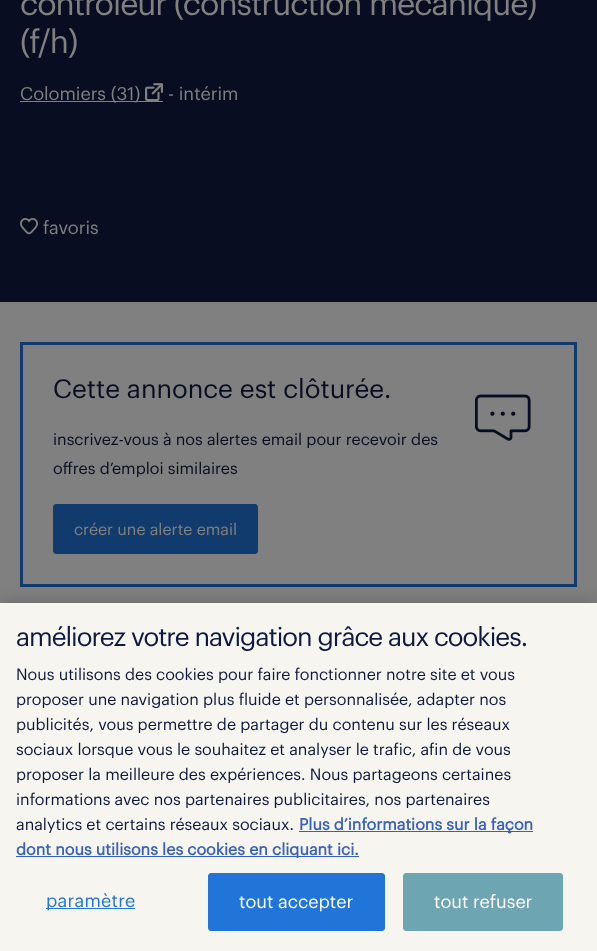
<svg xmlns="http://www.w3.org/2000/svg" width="597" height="951">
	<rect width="100%" height="100%" fill="#808080" />
	<rect x="0" y="0" width="597" height="302" fill="#080D21" />
	<g font-family="Graphik" font-size="32" letter-spacing="-1" fill="#808080">
		<text x="20" y="15">controleur (construction mécanique)</text>
		<text x="20" y="53">(f/h)</text>
	</g>
	<rect x="20" y="101" width="143" height="1" fill="#808080" />
	<text x="20" y="100" font-family="Graphik" font-size="18" fill="#808080">Colomiers (31)</text>
	<image x="145" y="83" width="18" height="18" href="assets/img1.png" />
	<text x="168" y="100" font-family="Graphik" font-size="18" fill="#808080">- intérim</text>
	<image x="20" y="218" width="18" height="17" href="assets/img2.png" />
	<text x="43" y="234" font-family="Graphik" font-size="18" fill="#808080">favoris</text>
	<rect x="21.5" y="343.5" width="554" height="242" fill="none" stroke="#113B6D" stroke-width="3" />
	<text x="53" y="398" font-family="Graphik" font-size="26" fill="#080D21">Cette annonce est clôturée.</text>
	<g font-family="Graphik" font-size="16" fill="#080D21">
		<text x="53" y="445">inscrivez-vous à nos alertes email pour recevoir des</text>
		<text x="53" y="474">offres d’emploi similaires</text>
	</g>
	<rect x="53.5" y="504.5" width="204" height="49" rx="2.5" fill="#113B6D" stroke="#113B6D" />
	<text x="74" y="535" font-family="Graphik" font-size="16" fill="#808080">créer une alerte email</text>
	<image x="475" y="394" width="56" height="47" href="assets/img3.png" />
	<rect x="0" y="603" width="597" height="348" fill="#000000" fill-opacity="0.2" filter="blur(9px)" />
	<rect x="0" y="603" width="597" height="348" fill="#F7F5F0" />
	<text x="16" y="646" font-family="Graphik" font-size="26" letter-spacing="-1" fill="#0F1941">améliorez votre navigation grâce aux cookies.</text>
	<g font-family="Graphik" font-size="16" fill="#0F1941">
		<text x="16" y="680">Nous utilisons des cookies pour faire fonctionner notre site et vous</text>
		<text x="16" y="705">proposer une navigation plus fluide et personnalisée, adapter nos</text>
		<text x="16" y="730">publicités, vous permettre de partager du contenu sur les réseaux</text>
		<text x="16" y="755">sociaux lorsque vous le souhaitez et analyser le trafic, afin de vous</text>
		<text x="16" y="780">proposer la meilleure des expériences. Nous partageons certaines</text>
		<text x="16" y="805">informations avec nos partenaires publicitaires, nos partenaires</text>
		<text x="16" y="830">analytics et certains réseaux sociaux.</text>
	</g>
	<rect x="299" y="831" width="234" height="1" fill="#3860BE" />
	<text x="299" y="830" font-family="Graphik" font-size="16" font-weight="700" fill="#3860BE">Plus d’informations sur la façon</text>
	<rect x="16" y="856" width="343" height="1" fill="#3860BE" />
	<text x="16" y="855" font-family="Graphik" font-size="16" font-weight="700" fill="#3860BE">dont nous utilisons les cookies en cliquant ici.</text>
	<rect x="46" y="908" width="89" height="1" fill="#2175D9" />
	<text x="46" y="907" font-family="Graphik" font-size="18" letter-spacing="0.25" fill="#2175D9">paramètre</text>
	<rect x="208.5" y="873.5" width="176" height="57" rx="2.5" fill="#2175D9" stroke="#2175D9" />
	<text x="239" y="908" font-family="Graphik" font-size="18" fill="#FFFFFF">tout accepter</text>
	<rect x="403.5" y="873.5" width="159" height="57" rx="2.5" fill="#6DA5B3" stroke="#6DA5B3" />
	<text x="434" y="908" font-family="Graphik" font-size="18" fill="#FFFFFF">tout refuser</text>
</svg>
